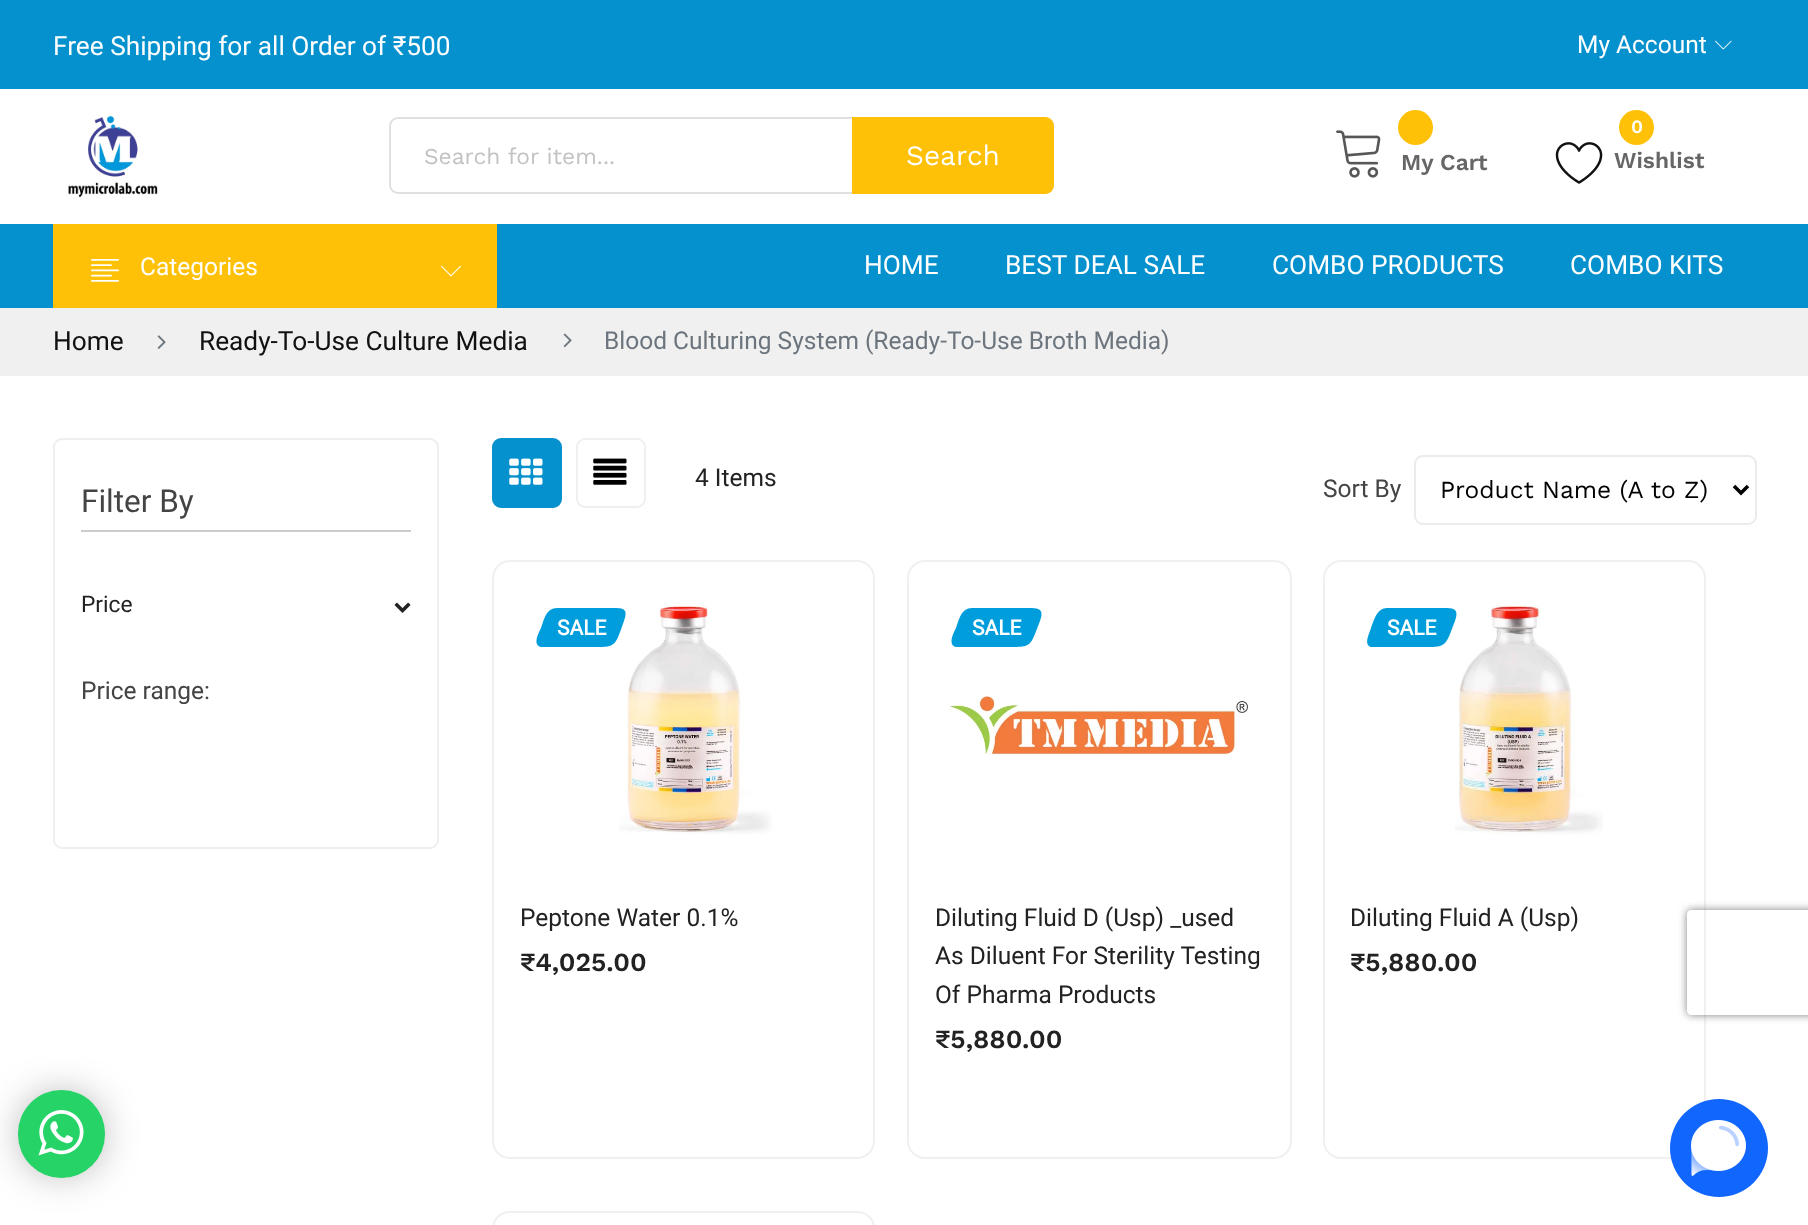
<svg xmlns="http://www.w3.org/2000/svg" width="1808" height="1225">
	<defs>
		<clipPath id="clip1"><path d="M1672 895H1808V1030H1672ZM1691 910H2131C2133 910 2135 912 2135 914V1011C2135 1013 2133 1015 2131 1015H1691C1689 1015 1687 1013 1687 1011V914C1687 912 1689 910 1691 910Z" clip-rule="evenodd" /></clipPath>
	</defs>
	<rect width="100%" height="100%" fill="#FFFFFF" />
	<rect x="0" y="0" width="1808" height="89" fill="#0591CD" />
	<text x="53" y="55" font-family="Roboto" font-size="26.25" fill="#FFFFFF">Free Shipping for all Order of ₹500</text>
	<text x="1577" y="53" font-family="Roboto" font-size="24.5" fill="#FFFFFF">My Account</text>
	<image x="1715" y="40" width="17" height="10" href="assets/img1.png" />
	<image x="68" y="115" width="90" height="83" href="assets/img2.png" />
	<rect x="390" y="118" width="663" height="75" rx="8" fill="none" stroke="#E0E0E0" stroke-width="2" />
	<text x="424" y="164" font-family="Work Sans" font-size="22.75" fill="#C2C2C2">Search for item...</text>
	<path d="M852 117H1045C1050 117 1054 121 1054 126V185C1054 190 1050 194 1045 194H852Z" fill="#FFC107" />
	<text x="906" y="165" font-family="Work Sans" font-size="28" fill="#FFFFFF">Search</text>
	<image x="1336" y="130" width="45" height="48" href="assets/img3.png" />
	<circle cx="1415.5" cy="127.5" r="17.5" fill="#FFC107" />
	<text x="1401" y="170" font-family="Work Sans" font-size="22.75" font-weight="600" fill="#666666">My Cart</text>
	<circle cx="1636.5" cy="127.5" r="17.5" fill="#FFC107" />
	<text x="1631" y="133" font-family="Work Sans" font-size="19" font-weight="600" fill="#FFFFFF">0</text>
	<image x="1555" y="142" width="48" height="42" href="assets/img4.png" />
	<text x="1614" y="168" font-family="Work Sans" font-size="22.75" font-weight="600" fill="#666666">Wishlist</text>
	<rect x="0" y="224" width="1808" height="84" fill="#0591CD" />
	<rect x="53" y="224" width="444" height="84" fill="#FFC107" />
	<image x="91" y="259" width="28" height="23" href="assets/img5.png" />
	<text x="140" y="275" font-family="Roboto" font-size="24.5" fill="#FFFFFF">Categories</text>
	<image x="441" y="265" width="20" height="12" href="assets/img6.png" />
	<g font-family="Roboto" font-size="26.25" fill="#FFFFFF">
		<text x="864" y="274">HOME</text>
		<text x="1005" y="274">BEST DEAL SALE</text>
		<text x="1272" y="274">COMBO PRODUCTS</text>
		<text x="1570" y="274">COMBO KITS</text>
	</g>
	<rect x="0" y="308" width="1808" height="68" fill="#F0F0F0" />
	<text x="53" y="350" font-family="Roboto" font-size="26.25" fill="#111111">Home</text>
	<image x="157" y="335" width="9" height="14" href="assets/img7.png" />
	<text x="199" y="350" font-family="Roboto" font-size="26.25" fill="#111111">Ready-To-Use Culture Media</text>
	<image x="563" y="333" width="9" height="15" href="assets/img8.png" />
	<text x="604" y="349" font-family="Roboto" font-size="24.5" fill="#6C757D">Blood Culturing System (Ready-To-Use Broth Media)</text>
	<rect x="54" y="439" width="384" height="409" rx="8" fill="none" stroke="#EFEFEF" stroke-width="2" />
	<rect x="81" y="530" width="330" height="2" fill="#CCCCCC" />
	<text x="81" y="512" font-family="Roboto" font-size="31.5" fill="#444444">Filter By</text>
	<text x="81" y="612" font-family="Roboto" font-size="22.75" fill="#222222">Price</text>
	<image x="394" y="602" width="17" height="11" href="assets/img9.png" />
	<text x="81" y="699" font-family="Roboto" font-size="24.5" fill="#444444">Price range:</text>
	<rect x="493" y="439" width="68" height="68" rx="8" fill="#0591CD" stroke="#0591CD" stroke-width="2" />
	<image x="509" y="458" width="34" height="27" href="assets/img10.png" />
	<rect x="577" y="439" width="68" height="68" rx="8" fill="none" stroke="#F0F0F0" stroke-width="2" />
	<image x="593" y="458" width="34" height="27" href="assets/img11.png" />
	<text x="695" y="486" font-family="Roboto" font-size="24.5" fill="#222222">4 Items</text>
	<text x="1323" y="497" font-family="Roboto" font-size="24.5" fill="#444444">Sort By</text>
	<rect x="1415" y="456" width="341" height="68" rx="8" fill="none" stroke="#EBEBEB" stroke-width="2" />
	<path d="M1734 486L1741 493L1748 486" fill="none" stroke="#000000" stroke-width="3.5" />
	<text x="1440" y="498" font-family="Work Sans" font-size="24.5" fill="#000000">Product Name (A to Z)</text>
	<rect x="493" y="561" width="381" height="597" rx="17" fill="none" stroke="#F0F0F0" stroke-width="2" />
	<image x="619" y="603" width="153" height="232" href="assets/img12.png" />
	<path d="M557 608H609C622 608 629 607 624 621C614 649 617 647 585 647H541C532 645 539 632 541 628C544 620 546 608 557 608Z" fill="#009DDD" />
	<text x="557" y="635" font-family="Roboto" font-size="21" font-weight="700" fill="#FFFFFF">SALE</text>
	<text x="520" y="926" font-family="Roboto" font-size="24.5" fill="#222222">Peptone Water 0.1%</text>
	<text x="520" y="971" font-family="Work Sans" font-size="26.25" font-weight="600" fill="#222222">₹4,025.00</text>
	<rect x="908" y="561" width="383" height="597" rx="17" fill="none" stroke="#F0F0F0" stroke-width="2" />
	<path d="M972 608H1025C1037 608 1045 607 1040 621C1029 649 1033 647 1000 647H956C947 645 954 632 956 628C959 620 961 608 972 608Z" fill="#009DDD" />
	<text x="972" y="635" font-family="Roboto" font-size="21" font-weight="700" fill="#FFFFFF">SALE</text>
	<image x="950" y="694" width="298" height="62" href="assets/img13.png" />
	<g font-family="Roboto" font-size="24.5" fill="#222222">
		<text x="935" y="926">Diluting Fluid D (Usp) _used</text>
		<text x="935" y="964">As Diluent For Sterility Testing</text>
		<text x="935" y="1003">Of Pharma Products</text>
	</g>
	<text x="935" y="1048" font-family="Work Sans" font-size="26.25" font-weight="600" fill="#222222">₹5,880.00</text>
	<rect x="1324" y="561" width="381" height="597" rx="17" fill="none" stroke="#F0F0F0" stroke-width="2" />
	<image x="1455" y="603" width="148" height="232" href="assets/img14.png" />
	<path d="M1387 608H1440C1452 608 1460 607 1455 621C1444 649 1448 647 1415 647H1371C1363 645 1370 632 1371 628C1374 620 1377 608 1387 608Z" fill="#009DDD" />
	<text x="1387" y="635" font-family="Roboto" font-size="21" font-weight="700" fill="#FFFFFF">SALE</text>
	<text x="1350" y="926" font-family="Roboto" font-size="24.5" fill="#222222">Diluting Fluid A (Usp)</text>
	<text x="1350" y="971" font-family="Work Sans" font-size="26.25" font-weight="600" fill="#222222">₹5,880.00</text>
	<rect x="493" y="1212" width="381" height="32" rx="17" fill="none" stroke="#F0F0F0" stroke-width="2" />
	<rect x="28" y="1101" width="67" height="66" rx="33" fill="#000000" fill-opacity="0.5" filter="blur(22px)" />
	<rect x="18" y="1090" width="87" height="88" rx="43.5" fill="#25D366" />
	<image x="38" y="1110" width="46" height="46" href="assets/img15.png" />
	<g clip-path="url(#clip1)">
		<rect x="1687" y="910" width="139" height="105" rx="4" fill="#808080" filter="blur(4.5px)" />
	</g>
	<circle cx="1719" cy="1148" r="49" fill="#1166FD" />
	<image x="1691" y="1120" width="55" height="56" href="assets/img16.png" />
</svg>
